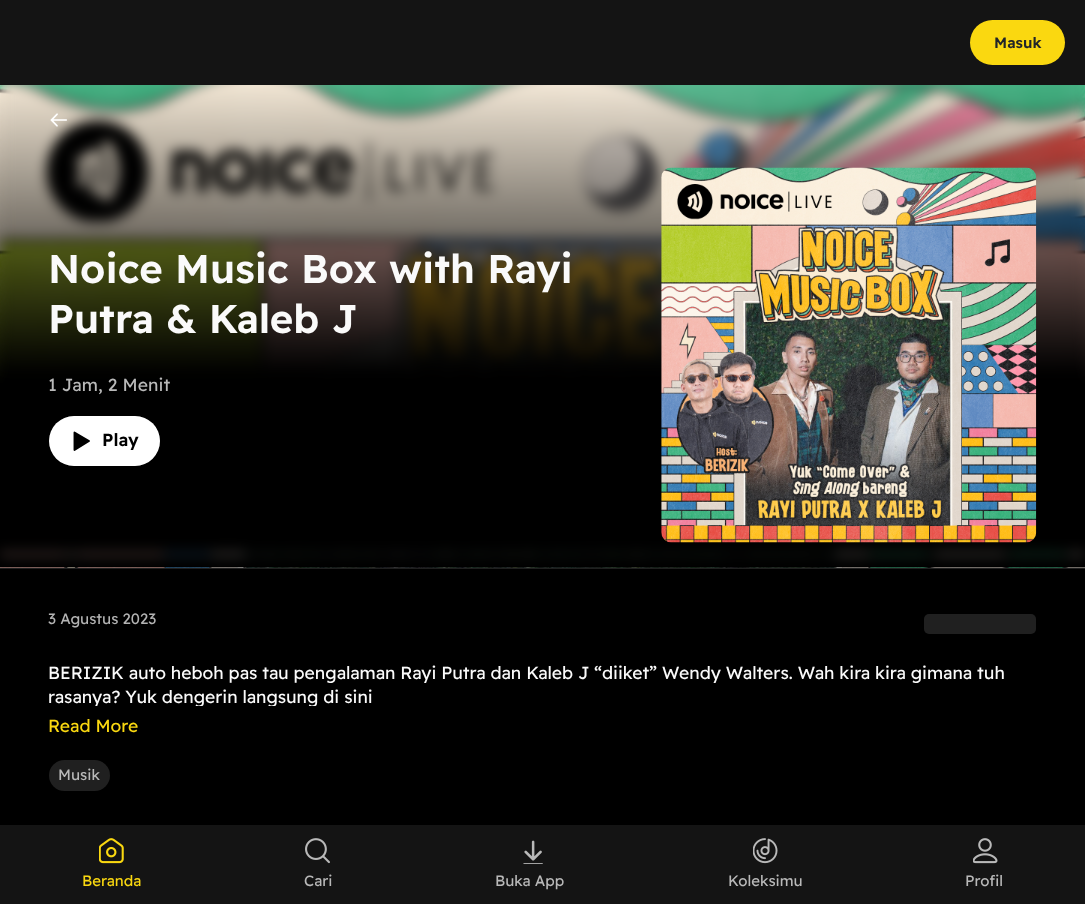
<svg xmlns="http://www.w3.org/2000/svg" width="1085" height="904">
	<defs>
		<clipPath id="clip1"><rect x="49" y="661" width="987" height="45" /></clipPath>
	</defs>
	<rect width="100%" height="100%" fill="#141414" />
	<rect x="970" y="20" width="95" height="45" rx="22.5" fill="#FAD810" />
	<text x="994" y="48" font-family="Readex Pro" font-size="15" font-weight="600" letter-spacing="0.1" fill="#212529">Masuk</text>
	<rect x="0" y="569" width="1085" height="256" fill="#000000" />
	<image x="0" y="85" width="1085" height="483" href="assets/img1.png" />
	<rect x="0" y="568" width="1085" height="1" fill="#202020" />
	<image x="0" y="85" width="1085" height="481" href="assets/img2.png" />
	<image x="50" y="113" width="17" height="14" href="assets/img3.png" />
	<g font-family="Readex Pro" font-size="40" font-weight="600" fill="#FAFAFA">
		<text x="48" y="283">Noice Music Box with Rayi</text>
		<text x="48" y="333">Putra &amp; Kaleb J</text>
	</g>
	<text x="48" y="391" font-family="Readex Pro" font-size="17.5" letter-spacing="0.1" fill="#B9B9B9">1 Jam, 2 Menit</text>
	<rect x="49" y="416" width="111" height="50" rx="25" fill="#FFFFFF" />
	<rect x="49.5" y="416.5" width="110" height="49" rx="24.5" fill="none" stroke="#FFFFFF" stroke-opacity="0.15" />
	<path d="M74.5 450V432.5L89 441Z" fill="#000000" stroke="#000000" stroke-width="1.9" stroke-linejoin="round" />
	<text x="102" y="446" font-family="Readex Pro" font-size="17.5" font-weight="600" letter-spacing="0.1" fill="#000000">Play</text>
	<image x="661" y="167" width="376" height="376" href="assets/img4.png" />
	<text x="48" y="624" font-family="Readex Pro" font-size="15" fill="#B3B3B3">3 Agustus 2023</text>
	<rect x="924" y="614" width="112" height="20" rx="5" fill="#202020" />
	<text x="48" y="679" font-family="Readex Pro" font-size="17.5" fill="#FAFAFA">BERIZIK auto heboh pas tau pengalaman Rayi Putra dan Kaleb J “diiket” Wendy Walters. Wah kira kira gimana tuh</text>
	<g clip-path="url(#clip1)">
		<text x="48" y="703" font-family="Readex Pro" font-size="17.5" fill="#FAFAFA">rasanya? Yuk dengerin langsung di sini</text>
	</g>
	<text x="48" y="732" font-family="Readex Pro" font-size="17.5" fill="#FAD810">Read More</text>
	<rect x="49" y="760" width="61" height="31" rx="15.5" fill="#202020" />
	<text x="58" y="780" font-family="Readex Pro" font-size="15" fill="#B9B9B9">Musik</text>
	<image x="99" y="838" width="25" height="26" href="assets/img5.png" />
	<text x="82" y="886" font-family="Readex Pro" font-size="15" fill="#FAD810">Beranda</text>
	<image x="305" y="838" width="25" height="26" href="assets/img6.png" />
	<text x="304" y="886" font-family="Readex Pro" font-size="15" fill="#B9B9B9">Cari</text>
	<image x="523" y="840" width="20" height="24" href="assets/img7.png" />
	<text x="495" y="886" font-family="Readex Pro" font-size="15" fill="#B9B9B9">Buka App</text>
	<image x="753" y="838" width="25" height="26" href="assets/img8.png" />
	<text x="728" y="886" font-family="Readex Pro" font-size="15" fill="#B9B9B9">Koleksimu</text>
	<image x="973" y="838" width="25" height="26" href="assets/img9.png" />
	<text x="965" y="886" font-family="Readex Pro" font-size="15" fill="#B9B9B9">Profil</text>
</svg>
